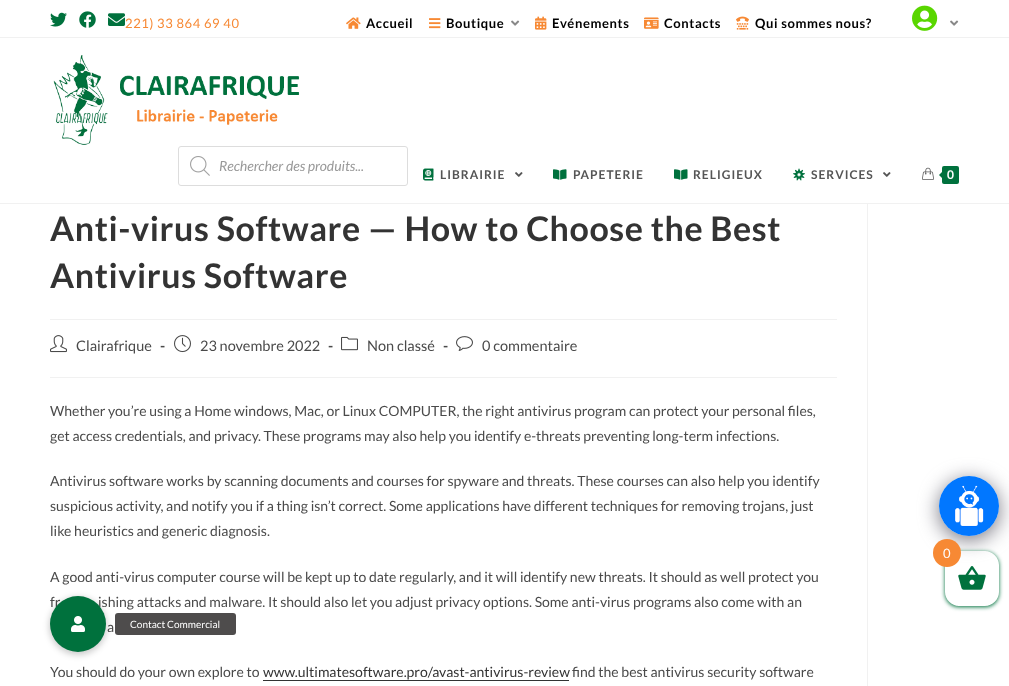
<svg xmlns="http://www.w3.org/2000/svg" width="1009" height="686">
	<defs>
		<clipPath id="clip1"><path d="M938 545H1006V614H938ZM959 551H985C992.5 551 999 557.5 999 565V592C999 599.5 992.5 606 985 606H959C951.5 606 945 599.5 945 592V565C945 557.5 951.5 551 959 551Z" clip-rule="evenodd" /></clipPath>
	</defs>
	<rect width="100%" height="100%" fill="#FFFFFF" />
	<rect x="0" y="37" width="1009" height="1" fill="#F1F1F1" />
	<image x="50" y="12" width="17" height="15" href="assets/img1.png" />
	<image x="79" y="11" width="17" height="17" href="assets/img2.png" />
	<image x="108" y="13" width="17" height="13" href="assets/img3.png" />
	<text x="125" y="28" font-family="Lato" font-size="13" letter-spacing="0.6" fill="#F78934">221) 33 864 69 40</text>
	<image x="346" y="17" width="15" height="12" href="assets/img4.png" />
	<text x="366" y="28" font-family="Lato" font-size="13" font-weight="700" letter-spacing="0.6" fill="#000000">Accueil</text>
	<image x="429" y="18" width="12" height="11" href="assets/img5.png" />
	<text x="446" y="28" font-family="Lato" font-size="13" font-weight="700" letter-spacing="0.6" fill="#000000">Boutique</text>
	<image x="511" y="20" width="9" height="6" href="assets/img6.png" />
	<image x="535" y="16" width="12" height="14" href="assets/img7.png" />
	<text x="552" y="28" font-family="Lato" font-size="13" font-weight="700" letter-spacing="0.6" fill="#000000">Evénements</text>
	<image x="644" y="17" width="15" height="12" href="assets/img8.png" />
	<text x="664" y="28" font-family="Lato" font-size="13" font-weight="700" letter-spacing="0.6" fill="#000000">Contacts</text>
	<image x="736" y="16" width="13" height="14" href="assets/img9.png" />
	<text x="755" y="28" font-family="Lato" font-size="13" font-weight="700" letter-spacing="0.6" fill="#000000">Qui sommes nous?</text>
	<image x="912" y="5" width="26" height="26" href="assets/img10.png" />
	<image x="950" y="20" width="9" height="6" href="assets/img6.png" />
	<rect x="0" y="203" width="1009" height="1" fill="#F1F1F1" />
	<image x="53" y="55" width="247" height="90" href="assets/img11.png" />
	<rect x="178.5" y="146.5" width="229" height="39" rx="2.5" fill="none" stroke="#DDDDDD" />
	<image x="190" y="156" width="20" height="20" href="assets/img12.png" />
	<text x="219" y="171" font-family="Lato" font-size="14" font-style="italic" fill="#999999">Rechercher des produits...</text>
	<image x="423" y="168" width="11" height="13" href="assets/img13.png" />
	<text x="440" y="179" font-family="Lato" font-size="12" font-weight="700" letter-spacing="1" fill="#555555">LIBRAIRIE</text>
	<image x="515" y="172" width="8" height="5" href="assets/img14.png" />
	<image x="553" y="169" width="14" height="11" href="assets/img15.png" />
	<text x="573" y="179" font-family="Lato" font-size="12" font-weight="700" letter-spacing="1" fill="#555555">PAPETERIE</text>
	<image x="674" y="169" width="14" height="11" href="assets/img15.png" />
	<text x="693" y="179" font-family="Lato" font-size="12" font-weight="700" letter-spacing="1" fill="#555555">RELIGIEUX</text>
	<image x="793" y="168" width="12" height="13" href="assets/img16.png" />
	<text x="811" y="179" font-family="Lato" font-size="12" font-weight="700" letter-spacing="1" fill="#555555">SERVICES</text>
	<image x="883" y="172" width="8" height="5" href="assets/img14.png" />
	<image x="922" y="167" width="12" height="13" href="assets/img17.png" />
	<rect x="942" y="166" width="17" height="18" rx="2" fill="#00713D" />
	<path d="M944 170V180L939 175Z" fill="#00713D" />
	<text x="947" y="179" font-family="Lato" font-size="12" font-weight="700" fill="#FFFFFF">0</text>
	<rect x="867" y="204" width="1" height="482" fill="#F1F1F1" />
	<rect x="50" y="319" width="787" height="1" fill="#F1F1F1" />
	<g font-family="Lato" font-size="34" font-weight="700" letter-spacing="0.6" fill="#333333">
		<text x="50" y="241">Anti-virus Software — How to Choose the Best</text>
		<text x="50" y="288">Antivirus Software</text>
	</g>
	<rect x="50" y="377" width="787" height="1" fill="#F1F1F1" />
	<image x="50" y="335" width="17" height="18" href="assets/img18.png" />
	<text x="76" y="351" font-family="Lato" font-size="14.5" fill="#4A4A4A">Clairafrique</text>
	<text x="160" y="351" font-family="Lato" font-size="14.5" font-weight="700" fill="#4A4A4A">-</text>
	<image x="174" y="335" width="17" height="18" href="assets/img19.png" />
	<text x="200" y="351" font-family="Lato" font-size="14.5" fill="#4A4A4A">23 novembre 2022</text>
	<text x="328" y="351" font-family="Lato" font-size="14.5" font-weight="700" fill="#4A4A4A">-</text>
	<image x="341" y="336" width="17" height="15" href="assets/img20.png" />
	<text x="367" y="351" font-family="Lato" font-size="14.5" fill="#4A4A4A">Non classé</text>
	<text x="443" y="351" font-family="Lato" font-size="14.5" font-weight="700" fill="#4A4A4A">-</text>
	<image x="456" y="336" width="17" height="15" href="assets/img21.png" />
	<text x="482" y="351" font-family="Lato" font-size="14.5" fill="#4A4A4A">0 commentaire</text>
	<g font-family="Lato" font-size="14" fill="#4A4A4A">
		<text x="50" y="416">Whether you’re using a Home windows, Mac, or Linux COMPUTER, the right antivirus program can protect your personal files,</text>
		<text x="50" y="441">get access credentials, and privacy. These programs may also help you identify e-threats preventing long-term infections.</text>
		<text x="50" y="486">Antivirus software works by scanning documents and courses for spyware and threats. These courses can also help you identify</text>
		<text x="50" y="511">suspicious activity, and notify you if a thing isn’t correct. Some applications have different techniques for removing trojans, just</text>
		<text x="50" y="536">like heuristics and generic diagnosis.</text>
		<text x="50" y="582">A good anti-virus computer course will be kept up to date regularly, and it will identify new threats. It should as well protect you</text>
		<text x="50" y="607">fr</text>
		<text x="98" y="607">ishing attacks and malware. It should also let you adjust privacy options. Some anti-virus programs also come with an</text>
		<text x="107" y="632">a</text>
		<text x="50" y="677">You should do your own explore to</text>
	</g>
	<text x="263" y="677" font-family="Lato" font-size="14" fill="#333333">www.ultimatesoftware.pro/avast-antivirus-review</text>
	<rect x="263" y="680" width="306" height="1" fill="#333333" />
	<text x="572" y="677" font-family="Lato" font-size="14" fill="#4A4A4A">find the best antivirus security software</text>
	<rect x="939" y="480" width="60" height="60" rx="30" fill="#767580" filter="blur(10px)" />
	<circle cx="969" cy="506" r="30" fill="#FFFFFF" />
	<image x="939" y="476" width="60" height="60" href="assets/img22.png" />
	<g clip-path="url(#clip1)">
		<rect x="945" y="552" width="54" height="55" rx="14" fill="#00713D" filter="blur(2px)" />
	</g>
	<circle cx="947" cy="553" r="14" fill="#F78934" />
	<text x="943" y="558" font-family="Lato" font-size="13" fill="#FFFFFF">0</text>
	<image x="958" y="566" width="28" height="24" href="assets/img23.png" />
	<rect x="49" y="597" width="58" height="58" rx="29" fill="#000000" fill-opacity="0.2" filter="blur(3px)" />
	<circle cx="78" cy="624" r="28" fill="#00713D" />
	<image x="71" y="616" width="14" height="16" href="assets/img24.png" />
	<rect x="115" y="613" width="121" height="22" rx="3" fill="#4E4C4C" />
	<text x="130" y="628" font-family="Lato" font-size="10" fill="#FFFFFF">Contact Commercial</text>
</svg>
